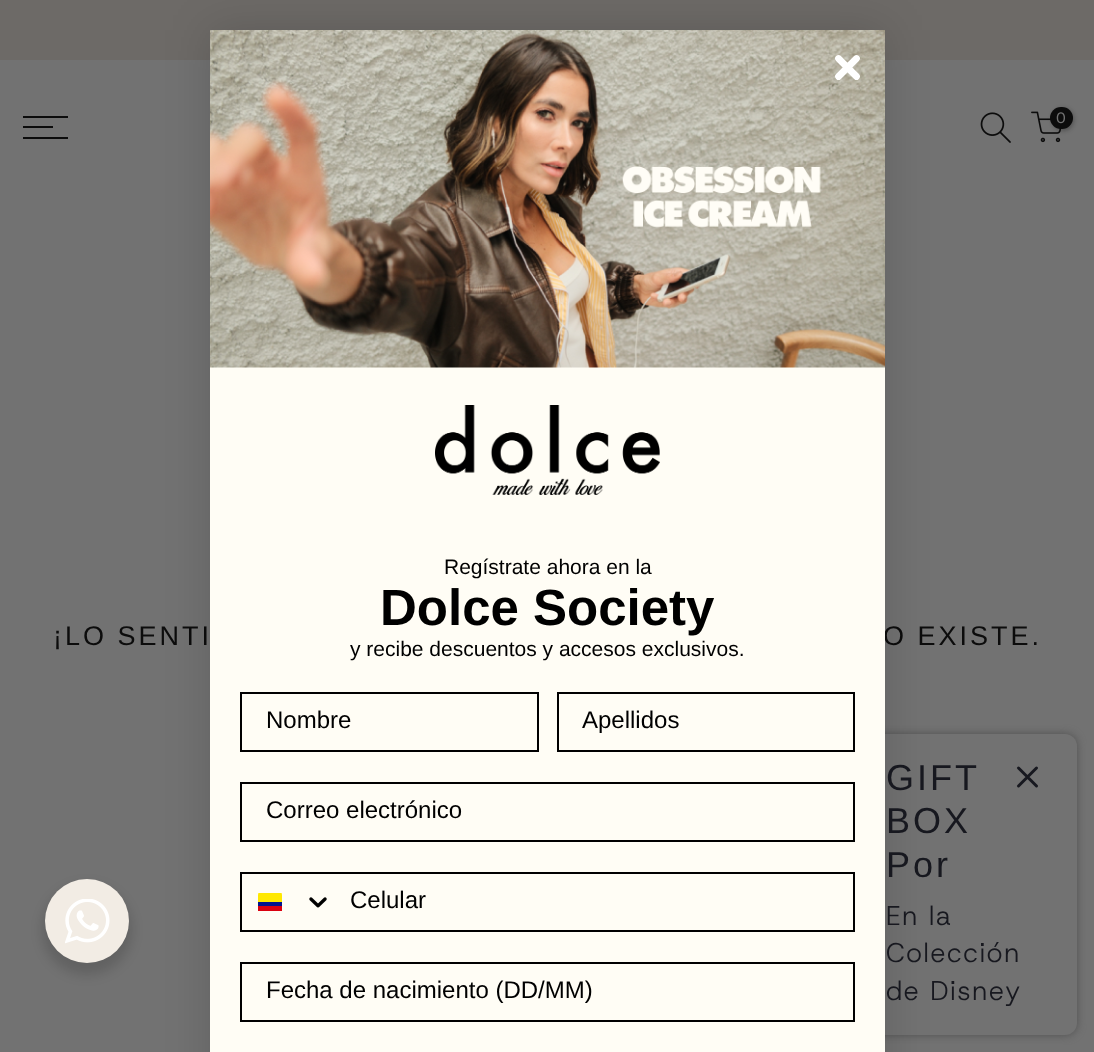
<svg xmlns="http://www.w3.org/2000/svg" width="1094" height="1052">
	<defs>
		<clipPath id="clip1"><rect x="258" y="890" width="24" height="24" rx="5" /></clipPath>
	</defs>
	<rect width="100%" height="100%" fill="#727272" />
	<rect x="0" y="0" width="1094" height="60" fill="#6D6A67" />
	<rect x="23" y="116" width="45" height="2" fill="#0C0C0C" />
	<rect x="23" y="126" width="30" height="2" fill="#0C0C0C" />
	<rect x="23" y="137" width="45" height="2" fill="#0C0C0C" />
	<image x="980" y="112" width="31" height="31" href="assets/img1.png" />
	<image x="1031" y="111" width="30" height="32" href="assets/img2.png" />
	<rect x="1052" y="108" width="22" height="23" rx="11" fill="#0C0C0C" fill-opacity="0.3" filter="blur(2px)" />
	<rect x="1050" y="107" width="23" height="22" rx="11" fill="#0C0C0C" />
	<text x="1056" y="123" font-family="Host Grotesk" font-size="15" fill="#727272">0</text>
	<g font-family="Liberation Sans" font-size="27" letter-spacing="3" fill="#0C0C0C">
		<text x="53" y="645">¡LO SENTI</text>
		<text x="883" y="645">O EXISTE.</text>
	</g>
	<rect x="42" y="885" width="90" height="90" rx="45" fill="#000000" fill-opacity="0.14" filter="blur(6px)" />
	<circle cx="87" cy="921" r="42" fill="#F2ECE4" />
	<image x="65" y="899" width="45" height="45" href="assets/img3.png" />
	<rect x="749" y="734" width="328" height="301" rx="12" fill="#505050" filter="blur(4px)" />
	<rect x="749" y="734" width="328" height="301" rx="12" fill="#727272" />
	<rect x="210" y="30" width="675" height="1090" fill="#000000" fill-opacity="0.15" filter="blur(22.5px)" />
	<rect x="210" y="367" width="675" height="685" fill="#FFFDF5" />
	<image x="210" y="30" width="675" height="338" href="assets/img4.png" />
	<path d="M838.5 58.5L856.5 76.5M838.5 76.5L856.5 58.5Z" fill="none" stroke="#FFFFFF" stroke-width="6.8" stroke-linecap="round" stroke-linejoin="round" />
	<image x="435" y="405" width="225" height="90" href="assets/img5.png" />
	<text x="444" y="574" font-family="Liberation Sans" font-size="21" fill="#000000">Regístrate ahora en la</text>
	<text x="380" y="625" font-family="Liberation Sans" font-size="51" font-weight="700" fill="#000000">Dolce Society</text>
	<text x="350" y="656" font-family="Liberation Sans" font-size="21" fill="#000000">y recibe descuentos y accesos exclusivos.</text>
	<rect x="241" y="693" width="297" height="58" fill="none" stroke="#000000" stroke-width="2" />
	<text x="266" y="728" font-family="Liberation Sans" font-size="24" fill="#000000">Nombre</text>
	<rect x="558" y="693" width="296" height="58" fill="none" stroke="#000000" stroke-width="2" />
	<text x="582" y="728" font-family="Liberation Sans" font-size="24" fill="#000000">Apellidos</text>
	<rect x="241" y="783" width="613" height="58" fill="none" stroke="#000000" stroke-width="2" />
	<text x="266" y="818" font-family="Liberation Sans" font-size="24" fill="#000000">Correo electrónico</text>
	<rect x="241" y="873" width="613" height="58" fill="none" stroke="#000000" stroke-width="2" />
	<g clip-path="url(#clip1)">
		<rect x="258" y="893" width="24" height="18" fill="#FFE800" />
	</g>
	<rect x="258" y="902" width="24" height="9" fill="#00148E" />
	<rect x="258" y="906" width="24" height="5" fill="#DA0010" />
	<image x="309" y="897" width="18" height="11" href="assets/img6.png" />
	<text x="350" y="908" font-family="Liberation Sans" font-size="24" fill="#000000">Celular</text>
	<rect x="241" y="963" width="613" height="58" fill="none" stroke="#000000" stroke-width="2" />
	<text x="266" y="998" font-family="Liberation Sans" font-size="24" fill="#000000">Fecha de nacimiento (DD/MM)</text>
	<g font-family="Liberation Sans" font-size="36" letter-spacing="3" fill="#17181F">
		<text x="886" y="790">GIFT</text>
		<text x="886" y="833">BOX</text>
		<text x="886" y="877">Por</text>
	</g>
	<g font-family="Host Grotesk" font-size="27" font-weight="300" letter-spacing="1.5" fill="#17181F">
		<text x="886" y="925">En la</text>
		<text x="886" y="962">Colección</text>
		<text x="886" y="1000">de Disney</text>
	</g>
	<path d="M1036.5 768L1018.5 786M1018.5 768L1036.5 786" fill="none" stroke="#17181F" stroke-width="3" stroke-linecap="round" stroke-linejoin="round" />
</svg>
